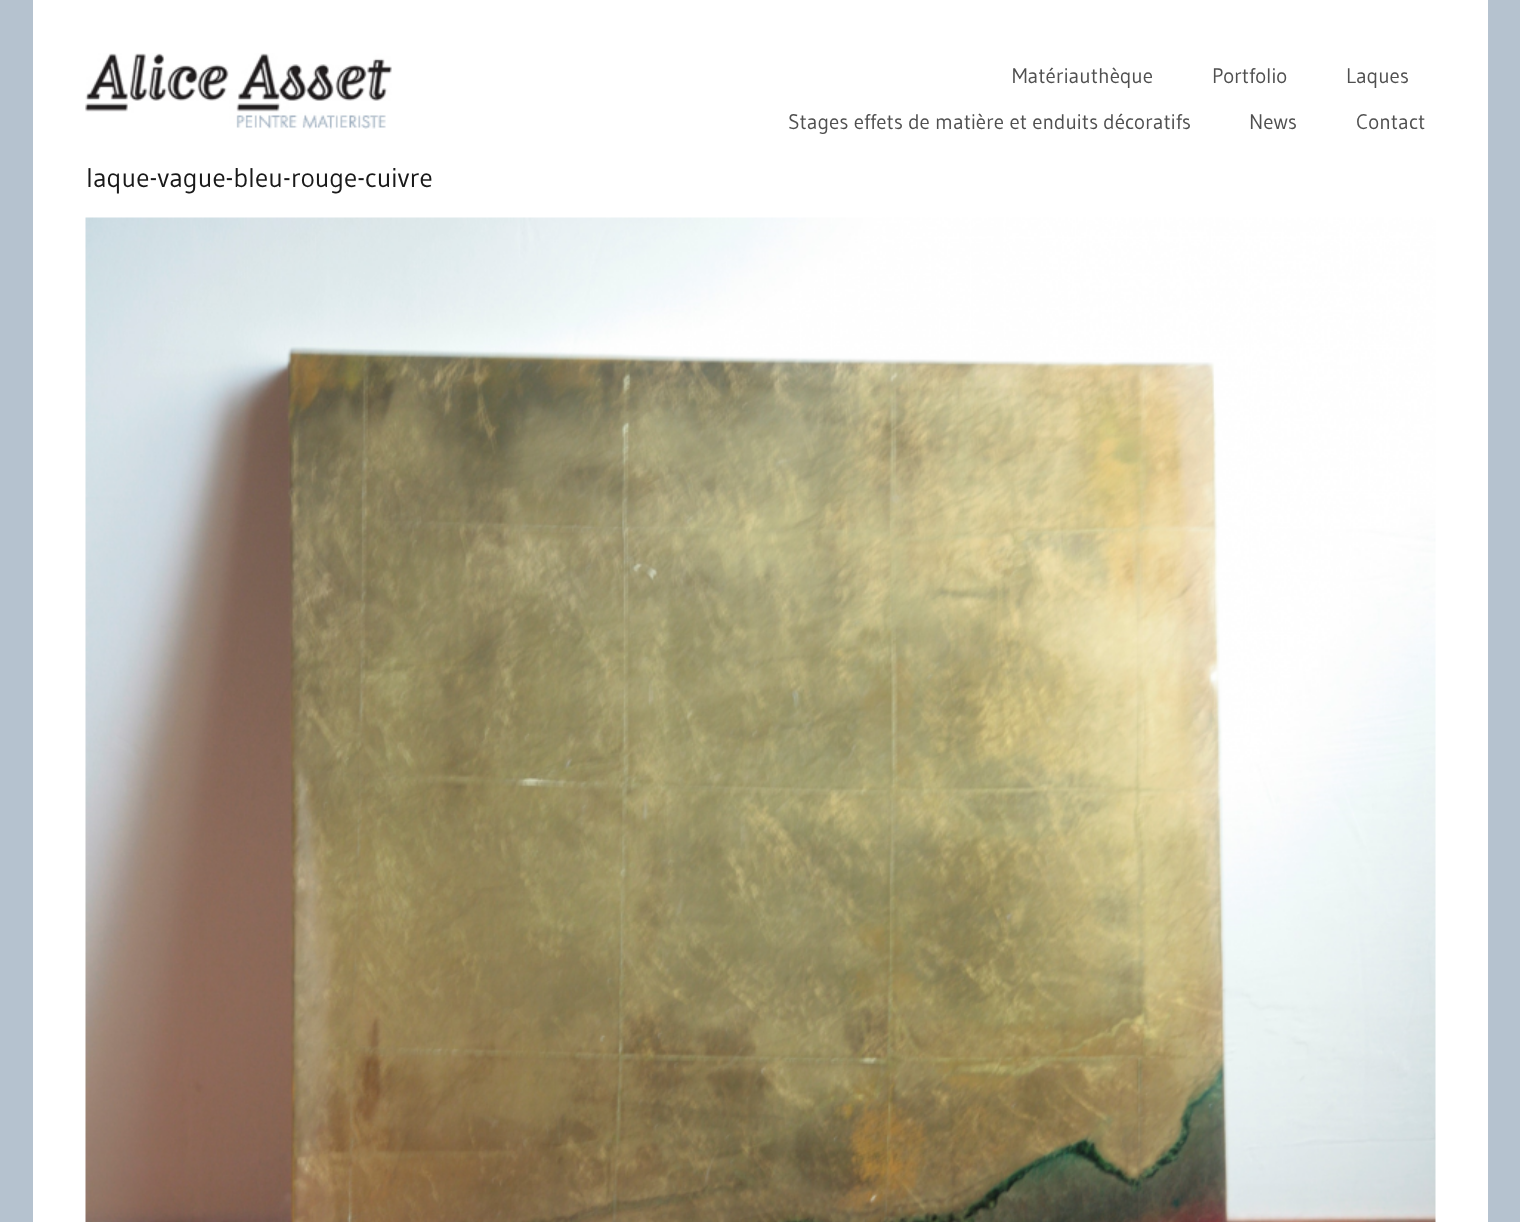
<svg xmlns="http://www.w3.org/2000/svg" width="1520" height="1222">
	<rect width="100%" height="100%" fill="#B5C2CF" />
	<rect x="33" y="0" width="1455" height="1222" fill="#FFFFFF" />
	<image x="85" y="53" width="307" height="76" href="assets/img1.png" />
	<g font-family="Gudea" font-size="21" fill="#505050">
		<text x="1012" y="83">Matériauthèque</text>
		<text x="1212" y="83">Portfolio</text>
		<text x="1346" y="83">Laques</text>
		<text x="788" y="129">Stages effets de matière et enduits décoratifs</text>
		<text x="1249" y="129">News</text>
		<text x="1356" y="129">Contact</text>
	</g>
	<text x="86" y="187" font-family="Gudea" font-size="27" fill="#191919">laque-vague-bleu-rouge-cuivre</text>
	<image x="85" y="217" width="1351" height="1005" href="assets/img2.png" />
</svg>
